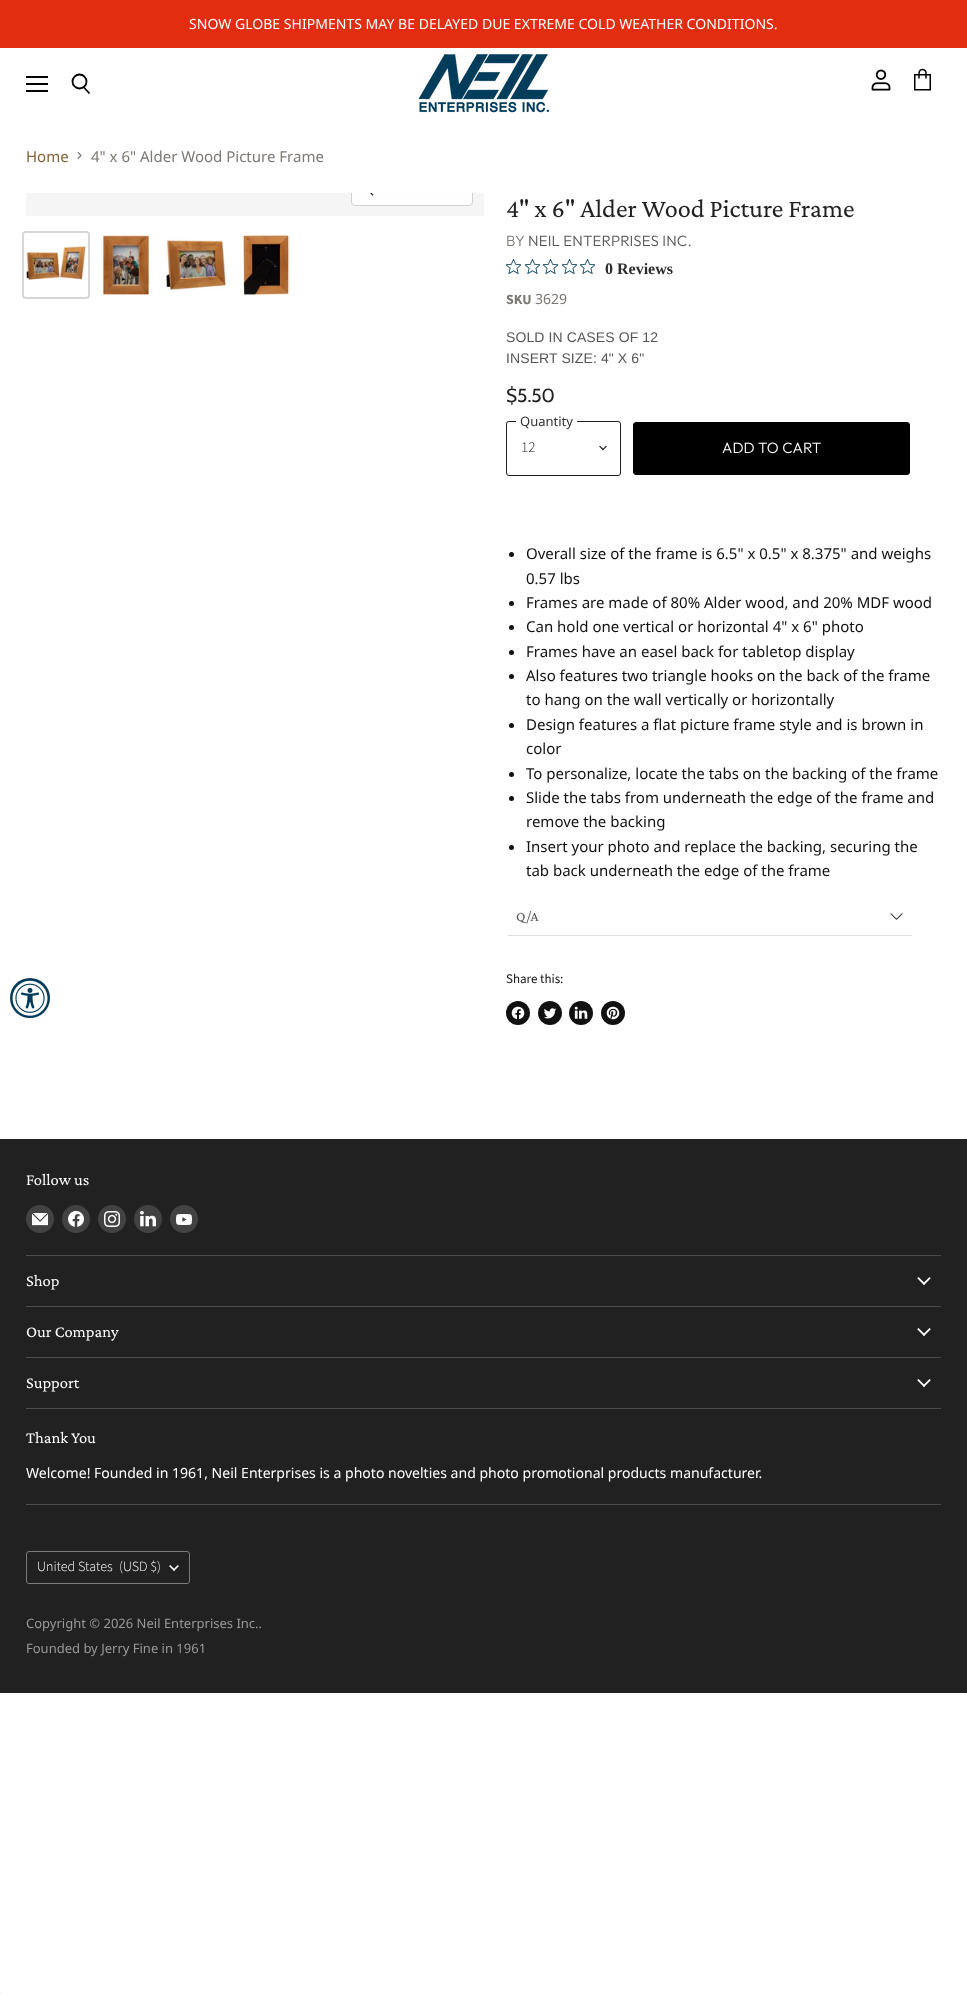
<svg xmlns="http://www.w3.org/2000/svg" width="967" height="1995">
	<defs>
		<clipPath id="clip1"><path d="M77.5 160V152H82.5V160Z" /></clipPath>
		<clipPath id="clip2"><rect x="26" y="193" width="458" height="23" /></clipPath>
	</defs>
	<rect width="100%" height="100%" fill="#FFFFFF" />
	<rect x="0" y="0" width="967" height="48" fill="#E22D11" />
	<text x="189" y="29" font-family="Noto Sans" font-size="14.05" fill="#FFFFFF">SNOW GLOBE SHIPMENTS MAY BE DELAYED DUE EXTREME COLD WEATHER CONDITIONS.</text>
	<rect x="26" y="76" width="22" height="2" fill="#000000" />
	<rect x="26" y="83" width="22" height="2" fill="#000000" />
	<rect x="26" y="90" width="22" height="2" fill="#000000" />
	<path d="M89.5 93.5L83.5 87" fill="none" stroke="#000000" stroke-width="1.8" />
	<circle cx="79.5" cy="81.5" r="7" fill="none" stroke="#000000" stroke-width="1.8" />
	<image x="418" y="54" width="132" height="59" href="assets/img1.png" />
	<image x="871" y="69" width="20" height="22" href="assets/img2.png" />
	<image x="914" y="68" width="17" height="23" href="assets/img3.png" />
	<text x="26" y="162" font-family="Noto Sans" font-size="15" fill="#816339">Home</text>
	<g clip-path="url(#clip1)">
		<path d="M77.5 159L81 155.5L77.5 152" fill="none" stroke="#7C7873" stroke-width="1.2" />
	</g>
	<text x="91" y="162" font-family="Noto Sans" font-size="15" fill="#7C7873">4" x 6" Alder Wood Picture Frame</text>
	<rect x="26" y="193" width="458" height="23" fill="#F5F5F5" />
	<g clip-path="url(#clip2)">
		<rect x="351.5" y="172.5" width="121" height="33" rx="3.5" fill="none" stroke="#D0D0D0" />
	</g>
	<path d="M352 193H472V202C472 203.5 470.5 205 469 205H355C353.5 205 352 203.5 352 202Z" fill="#FFFFFF" fill-opacity="0.9" />
	<image x="370" y="193" width="4" height="3" href="assets/img4.png" />
	<rect x="23" y="232" width="66" height="66" rx="3" fill="none" stroke="#D7D7D7" stroke-width="2" />
	<image x="26" y="245" width="60" height="36" href="assets/img5.png" />
	<image x="102" y="235" width="51" height="60" href="assets/img6.png" />
	<image x="166" y="235" width="60" height="57" href="assets/img7.png" />
	<image x="242" y="235" width="48" height="60" href="assets/img8.png" />
	<text x="506" y="217" font-family="Crimson Pro" font-size="26.25" fill="#212121">4" x 6" Alder Wood Picture Frame</text>
	<text x="506" y="246" font-family="Outfit" font-size="15" font-weight="300" letter-spacing="0.15" fill="#7C7873">BY</text>
	<text x="528" y="246" font-family="Outfit" font-size="15" font-weight="300" letter-spacing="0.15" fill="#555555">NEIL ENTERPRISES INC.</text>
	<image x="506" y="259" width="15" height="15" href="assets/img9.png" />
	<image x="525" y="259" width="15" height="15" href="assets/img9.png" />
	<image x="543" y="259" width="15" height="15" href="assets/img9.png" />
	<image x="562" y="259" width="15" height="15" href="assets/img9.png" />
	<image x="580" y="259" width="15" height="15" href="assets/img9.png" />
	<text x="605" y="274" font-family="Liberation Serif" font-size="16" font-weight="700" fill="#2C2C2C">0 Reviews</text>
	<text x="506" y="304" font-family="Source Sans Pro" font-size="14" font-weight="700" fill="#7C7873">SKU</text>
	<text x="535" y="304" font-family="Noto Sans" font-size="14" fill="#7C7873">3629</text>
	<g font-family="Liberation Sans" font-size="14" letter-spacing="0.1" fill="#555555">
		<text x="506" y="342">SOLD IN CASES OF 12</text>
		<text x="506" y="363">INSERT SIZE: 4" X 6"</text>
	</g>
	<text x="506" y="402" font-family="Cabin" font-size="19" fill="#212121">$5.50</text>
	<rect x="506.5" y="421.5" width="114" height="54" rx="2.5" fill="none" stroke="#212121" />
	<rect x="516" y="421" width="61" height="1" fill="#FFFFFF" />
	<text x="520" y="426" font-family="Noto Sans" font-size="13" fill="#333333">Quantity</text>
	<text x="521" y="452" font-family="Source Sans Pro" font-size="15" font-weight="300" fill="#212121">12</text>
	<image x="599" y="445" width="8" height="6" href="assets/img10.png" />
	<rect x="633.5" y="422.5" width="276" height="52" rx="2.5" fill="#000000" stroke="#000000" />
	<text x="722" y="453" font-family="Outfit" font-size="15" font-weight="300" letter-spacing="0.15" fill="#FFFFFF">ADD TO CART</text>
	<circle cx="511.5" cy="554.5" r="2.5" fill="#111111" />
	<g font-family="Noto Sans" font-size="15" fill="#111111">
		<text x="526" y="559">Overall size of the frame is 6.5" x 0.5" x 8.375" and weighs</text>
		<text x="526" y="584">0.57 lbs</text>
	</g>
	<circle cx="511.5" cy="603.5" r="2.5" fill="#111111" />
	<text x="526" y="608" font-family="Noto Sans" font-size="15" fill="#111111">Frames are made of 80% Alder wood, and 20% MDF wood</text>
	<circle cx="511.5" cy="627.5" r="2.5" fill="#111111" />
	<text x="526" y="632" font-family="Noto Sans" font-size="15" fill="#111111">Can hold one vertical or horizontal 4" x 6" photo</text>
	<circle cx="511.5" cy="652.5" r="2.5" fill="#111111" />
	<text x="526" y="657" font-family="Noto Sans" font-size="15" fill="#111111">Frames have an easel back for tabletop display</text>
	<circle cx="511.5" cy="676.5" r="2.5" fill="#111111" />
	<g font-family="Noto Sans" font-size="15" fill="#111111">
		<text x="526" y="681">Also features two triangle hooks on the back of the frame</text>
		<text x="526" y="705">to hang on the wall vertically or horizontally</text>
	</g>
	<circle cx="511.5" cy="725.5" r="2.5" fill="#111111" />
	<g font-family="Noto Sans" font-size="15" fill="#111111">
		<text x="526" y="730">Design features a flat picture frame style and is brown in</text>
		<text x="526" y="754">color</text>
	</g>
	<circle cx="511.5" cy="774.5" r="2.5" fill="#111111" />
	<text x="526" y="779" font-family="Noto Sans" font-size="15" fill="#111111">To personalize, locate the tabs on the backing of the frame</text>
	<circle cx="511.5" cy="798.5" r="2.5" fill="#111111" />
	<g font-family="Noto Sans" font-size="15" fill="#111111">
		<text x="526" y="803">Slide the tabs from underneath the edge of the frame and</text>
		<text x="526" y="827">remove the backing</text>
	</g>
	<circle cx="511.5" cy="847.5" r="2.5" fill="#111111" />
	<g font-family="Noto Sans" font-size="15" fill="#111111">
		<text x="526" y="852">Insert your photo and replace the backing, securing the</text>
		<text x="526" y="876">tab back underneath the edge of the frame</text>
	</g>
	<rect x="508" y="935" width="404" height="1" fill="#DFDFDF" />
	<text x="516" y="921" font-family="Crimson Pro" font-size="14" fill="#555555">Q/A</text>
	<image x="890" y="913" width="13" height="7" href="assets/img11.png" />
	<text x="506" y="983" font-family="Source Sans Pro" font-size="13" fill="#111111">Share this:</text>
	<circle cx="518" cy="1013" r="12" fill="#111111" />
	<image x="511" y="1006" width="14" height="14" href="assets/img12.png" />
	<circle cx="550" cy="1013" r="12" fill="#111111" />
	<image x="544" y="1008" width="13" height="11" href="assets/img13.png" />
	<circle cx="581" cy="1013" r="12" fill="#111111" />
	<image x="574" y="1006" width="14" height="13" href="assets/img14.png" />
	<circle cx="613" cy="1013" r="12" fill="#111111" />
	<image x="606" y="1006" width="14" height="14" href="assets/img15.png" />
	<circle cx="30" cy="998" r="20" fill="#003C59" />
	<image x="12" y="980" width="36" height="36" href="assets/img16.png" />
	<rect x="0" y="1139" width="967" height="554" fill="#212121" />
	<rect x="26" y="1255" width="915" height="1" fill="#4D4D4D" />
	<text x="26" y="1185" font-family="Crimson Pro" font-size="16.5" fill="#FFFFFF">Follow us</text>
	<circle cx="40" cy="1219" r="14" fill="#424242" />
	<image x="32" y="1213" width="16" height="13" href="assets/img17.png" />
	<circle cx="76" cy="1219" r="14" fill="#424242" />
	<image x="68" y="1211" width="16" height="16" href="assets/img18.png" />
	<circle cx="112" cy="1219" r="14" fill="#424242" />
	<image x="104" y="1211" width="16" height="16" href="assets/img19.png" />
	<circle cx="148" cy="1219" r="14" fill="#424242" />
	<image x="140" y="1211" width="16" height="16" href="assets/img20.png" />
	<circle cx="184" cy="1219" r="14" fill="#424242" />
	<image x="176" y="1214" width="16" height="11" href="assets/img21.png" />
	<rect x="26" y="1306" width="915" height="1" fill="#4D4D4D" />
	<text x="26" y="1286" font-family="Crimson Pro" font-size="16.5" fill="#FFFFFF">Shop</text>
	<image x="917" y="1277" width="14" height="8" href="assets/img22.png" />
	<rect x="26" y="1357" width="915" height="1" fill="#4D4D4D" />
	<text x="26" y="1337" font-family="Crimson Pro" font-size="16.5" fill="#FFFFFF">Our Company</text>
	<image x="917" y="1328" width="14" height="8" href="assets/img22.png" />
	<rect x="26" y="1408" width="915" height="1" fill="#4D4D4D" />
	<text x="26" y="1388" font-family="Crimson Pro" font-size="16.5" fill="#FFFFFF">Support</text>
	<image x="917" y="1379" width="14" height="8" href="assets/img22.png" />
	<rect x="26" y="1504" width="915" height="1" fill="#4D4D4D" />
	<text x="26" y="1443" font-family="Crimson Pro" font-size="16.5" fill="#FFFFFF">Thank You</text>
	<text x="26" y="1478" font-family="Noto Sans" font-size="14.05" fill="#FFFFFF">Welcome! Founded in 1961, Neil Enterprises is a photo novelties and photo promotional products manufacturer.</text>
	<rect x="26.5" y="1551.5" width="163" height="32" rx="2.5" fill="none" stroke="#7A7A7A" />
	<g font-family="Source Sans Pro" font-size="14.05" font-weight="300" fill="#FFFFFF">
		<text x="37" y="1571">United States</text>
		<text x="119" y="1571">(USD $)</text>
	</g>
	<image x="169" y="1565" width="10" height="6" href="assets/img23.png" />
	<g font-family="Noto Sans" font-size="13" fill="#999999">
		<text x="26" y="1628">Copyright © 2026 Neil Enterprises Inc..</text>
		<text x="26" y="1653">Founded by Jerry Fine in 1961</text>
	</g>
	<rect x="0" y="1993" width="2" height="2" fill="#F5F5F5" />
</svg>
